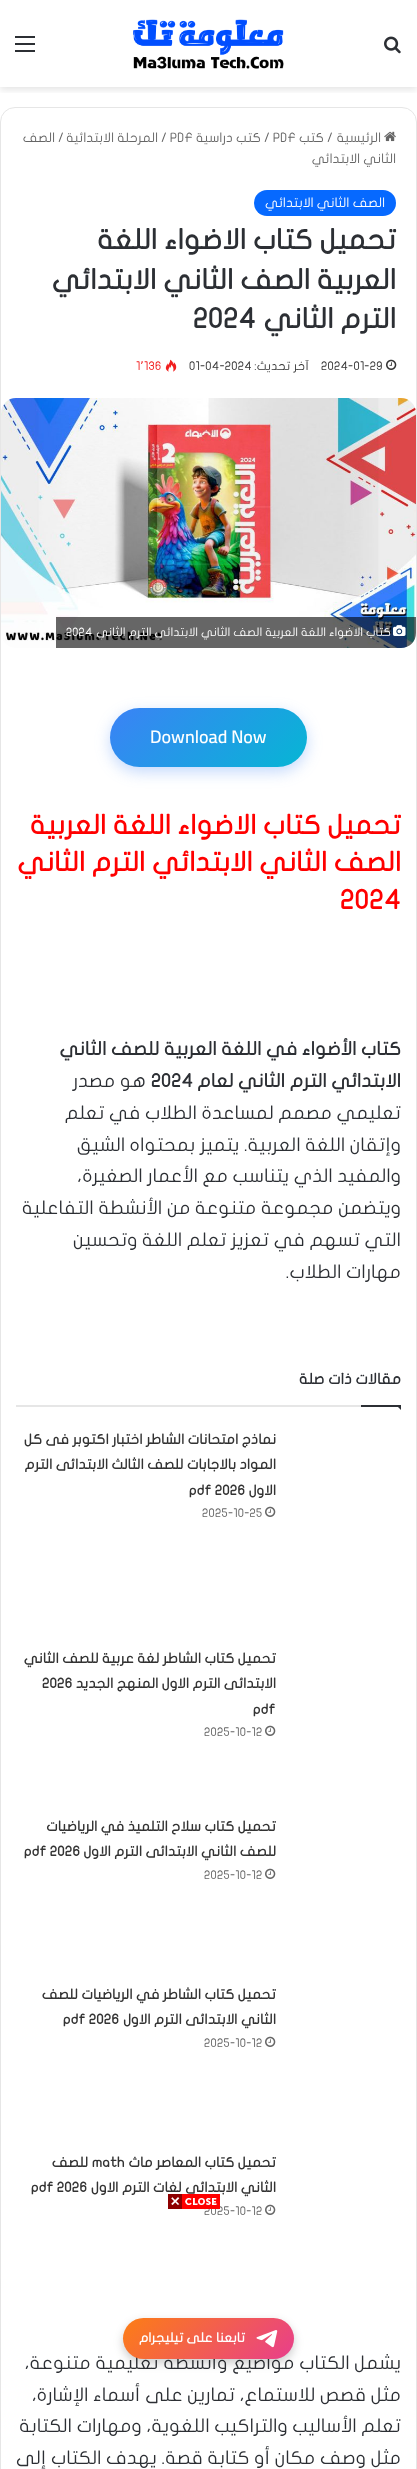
<svg xmlns="http://www.w3.org/2000/svg" width="417" height="2469">
	<defs>
		<clipPath id="clip1"><rect x="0" y="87" width="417" height="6" /></clipPath>
		<linearGradient id="g1" gradientUnits="userSpaceOnUse" x1="145" y1="674" x2="273" y2="802"><stop offset="0" stop-color="#3B82F6" /><stop offset="1" stop-color="#06B6D4" /></linearGradient>
		<linearGradient id="g2" gradientUnits="userSpaceOnUse" x1="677" y1="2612" x2="253" y2="2188"><stop offset="0" stop-color="#257BAD" /><stop offset="0.25" stop-color="#28A745" /><stop offset="0.5" stop-color="#6F42C1" /><stop offset="0.75" stop-color="#E83E8C" /><stop offset="1" stop-color="#FD7E14" /></linearGradient>
	</defs>
	<rect width="100%" height="100%" fill="#FFFFFF" />
	<g clip-path="url(#clip1)">
		<rect x="0" y="3" width="417" height="87" fill="#000000" fill-opacity="0.1" filter="blur(3.5px)" />
	</g>
	<image x="384" y="36" width="17" height="18" href="assets/img1.png" />
	<image x="133" y="19" width="151" height="50" href="assets/img2.png" />
	<rect x="15" y="43" width="20" height="2" fill="#2C2F34" />
	<rect x="15" y="36" width="20" height="2" fill="#2C2F34" />
	<rect x="15" y="50" width="20" height="2" fill="#2C2F34" />
	<rect x="0.5" y="107.5" width="416" height="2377" rx="14.5" fill="none" stroke="#E6E6E6" />
	<image x="384" y="131" width="12" height="11" href="assets/img3.png" />
	<text x="381" y="142" font-family="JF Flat" font-size="13" direction="rtl" fill="#666666">الرئيسية</text>
	<text x="327" y="142" font-family="JF Flat" font-size="13" fill="#666666">/</text>
	<text x="324" y="142" font-family="JF Flat" font-size="13" direction="rtl" fill="#666666">كتب</text>
	<g font-family="JF Flat" font-size="13" fill="#666666">
		<text x="273" y="142">PDF</text>
		<text x="264" y="142">/</text>
	</g>
	<text x="261" y="142" font-family="JF Flat" font-size="13" direction="rtl" fill="#666666">كتب دراسية</text>
	<g font-family="JF Flat" font-size="13" fill="#666666">
		<text x="170" y="142">PDF</text>
		<text x="161" y="142">/</text>
	</g>
	<text x="158" y="142" font-family="JF Flat" font-size="13" direction="rtl" fill="#666666">المرحلة الابتدائية</text>
	<text x="58" y="142" font-family="JF Flat" font-size="13" fill="#666666">/</text>
	<g font-family="JF Flat" font-size="13" direction="rtl" fill="#666666">
		<text x="55" y="142">الصف</text>
		<text x="396" y="163">الثاني الابتدائي</text>
	</g>
	<rect x="254" y="190" width="142" height="26" rx="13" fill="#0669FF" />
	<text x="385" y="207" font-family="JF Flat" font-size="13" direction="rtl" fill="#FFFFFF">الصف الثاني الابتدائي</text>
	<g font-family="JF Flat" font-size="28" font-weight="700" direction="rtl" fill="#2C2F34">
		<text x="396" y="249">تحميل كتاب الاضواء اللغة</text>
		<text x="396" y="289">العربية الصف الثاني الابتدائي</text>
		<text x="396" y="328">الترم الثاني</text>
	</g>
	<text x="193" y="328" font-family="JF Flat" font-size="28" font-weight="700" fill="#2C2F34">2024</text>
	<image x="386" y="359" width="11" height="11" href="assets/img4.png" />
	<text x="321" y="370" font-family="JF Flat" font-size="12" fill="#333333">2024-01-29</text>
	<text x="309" y="370" font-family="JF Flat" font-size="12" direction="rtl" fill="#333333">آخر تحديث:</text>
	<text x="189" y="370" font-family="JF Flat" font-size="12" fill="#333333">01-04-2024</text>
	<image x="165" y="359" width="12" height="13" href="assets/img5.png" />
	<text x="144" y="370" font-family="JF Flat" font-size="12" fill="#F11E1E">136</text>
	<text x="140" y="370" font-family="DejaVu Sans" font-size="12" fill="#F11E1E">٬</text>
	<text x="136" y="370" font-family="JF Flat" font-size="12" fill="#F11E1E">1</text>
	<image x="1" y="398" width="415" height="250" href="assets/img6.png" />
	<path d="M56 617H416V633C416 641.5 409.5 648 401 648H56Z" fill="#000000" fill-opacity="0.6" />
	<image x="393" y="625" width="13" height="11" href="assets/img7.png" />
	<text x="391" y="636" font-family="JF Flat" font-size="11.7" direction="rtl" fill="#FFFFFF">كتاب الاضواء اللغة العربية الصف الثاني الابتدائي الترم الثاني</text>
	<text x="66" y="636" font-family="JF Flat" font-size="11.7" fill="#FFFFFF">2024</text>
	<rect x="110" y="713" width="197" height="59" rx="29.5" fill="#3B82F6" fill-opacity="0.3" filter="blur(7.5px)" />
	<rect x="110" y="708" width="197" height="59" rx="29.5" fill="url(#g1)" />
	<text x="150" y="743" font-family="Cairo" font-size="18" font-weight="600" fill="#FFFFFF">Download Now</text>
	<g font-family="JF Flat" font-size="27" font-weight="700" direction="rtl" fill="#FF0000">
		<text x="401" y="834">تحميل كتاب الاضواء اللغة العربية</text>
		<text x="401" y="871">الصف الثاني الابتدائي الترم الثاني</text>
	</g>
	<text x="340" y="909" font-family="JF Flat" font-size="27" font-weight="700" fill="#FF0000">2024</text>
	<g font-family="JF Flat" font-size="18.7" font-weight="700" direction="rtl" fill="#2C2F34">
		<text x="401" y="1055">كتاب الأضواء في اللغة العربية للصف الثاني</text>
		<text x="401" y="1087">الابتدائي الترم الثاني لعام</text>
	</g>
	<text x="151" y="1087" font-family="JF Flat" font-size="18.7" font-weight="700" fill="#2C2F34">2024</text>
	<g font-family="JF Flat" font-size="18.7" direction="rtl" fill="#2C2F34">
		<text x="146" y="1087">هو مصدر</text>
		<text x="401" y="1119">تعليمي مصمم لمساعدة الطلاب في تعلم</text>
		<text x="401" y="1151">وإتقان اللغة العربية. يتميز بمحتواه الشيق</text>
		<text x="401" y="1182">والمفيد الذي يتناسب مع الأعمار الصغيرة،</text>
		<text x="401" y="1214">ويتضمن مجموعة متنوعة من الأنشطة التفاعلية</text>
		<text x="401" y="1246">التي تسهم في تعزيز تعلم اللغة وتحسين</text>
		<text x="401" y="1278">مهارات الطلاب.</text>
	</g>
	<rect x="16" y="1405" width="345" height="2" fill="#E6E6E6" />
	<text x="401" y="1384" font-family="JF Flat" font-size="15" font-weight="700" direction="rtl" fill="#2C2F34">مقالات ذات صلة</text>
	<path d="M396 1405H401V1410Z" fill="#2C2F34" />
	<rect x="361" y="1405" width="40" height="2" fill="#2C2F34" />
	<g font-family="JF Flat" font-size="14" font-weight="700" direction="rtl" fill="#333333">
		<text x="276" y="1444">نماذج امتحانات الشاطر اختبار اكتوبر فى كل</text>
		<text x="276" y="1469">المواد بالاجابات للصف الثالث الابتدائى الترم</text>
		<text x="276" y="1495">الاول</text>
	</g>
	<text x="189" y="1495" font-family="JF Flat" font-size="14" font-weight="700" fill="#333333">pdf 2026</text>
	<image x="265" y="1506" width="11" height="11" href="assets/img8.png" />
	<text x="202" y="1517" font-family="JF Flat" font-size="12" fill="#666666">2025-10-25</text>
	<g font-family="JF Flat" font-size="14" font-weight="700" direction="rtl" fill="#333333">
		<text x="276" y="1663">تحميل كتاب الشاطر لغة عربية للصف الثاني</text>
		<text x="276" y="1688">الابتدائى الترم الاول المنهج الجديد</text>
	</g>
	<g font-family="JF Flat" font-size="14" font-weight="700" fill="#333333">
		<text x="42" y="1688">2026</text>
		<text x="253" y="1714">pdf</text>
	</g>
	<image x="265" y="1725" width="11" height="11" href="assets/img8.png" />
	<text x="204" y="1736" font-family="JF Flat" font-size="12" fill="#666666">2025-10-12</text>
	<g font-family="JF Flat" font-size="14" font-weight="700" direction="rtl" fill="#333333">
		<text x="276" y="1831">تحميل كتاب سلاح التلميذ في الرياضيات</text>
		<text x="276" y="1856">للصف الثاني الابتدائى الترم الاول</text>
	</g>
	<text x="24" y="1856" font-family="JF Flat" font-size="14" font-weight="700" fill="#333333">pdf 2026</text>
	<image x="265" y="1868" width="11" height="11" href="assets/img8.png" />
	<text x="204" y="1879" font-family="JF Flat" font-size="12" fill="#666666">2025-10-12</text>
	<g font-family="JF Flat" font-size="14" font-weight="700" direction="rtl" fill="#333333">
		<text x="276" y="1999">تحميل كتاب الشاطر في الرياضيات للصف</text>
		<text x="276" y="2024">الثاني الابتدائى الترم الاول</text>
	</g>
	<text x="63" y="2024" font-family="JF Flat" font-size="14" font-weight="700" fill="#333333">pdf 2026</text>
	<image x="265" y="2036" width="11" height="11" href="assets/img8.png" />
	<text x="204" y="2047" font-family="JF Flat" font-size="12" fill="#666666">2025-10-12</text>
	<text x="276" y="2167" font-family="JF Flat" font-size="14" font-weight="700" direction="rtl" fill="#333333">تحميل كتاب المعاصر ماث</text>
	<text x="92" y="2167" font-family="JF Flat" font-size="14" font-weight="700" fill="#333333">math</text>
	<g font-family="JF Flat" font-size="14" font-weight="700" direction="rtl" fill="#333333">
		<text x="88" y="2167">للصف</text>
		<text x="276" y="2192">الثاني الابتدائى لغات الترم الاول</text>
	</g>
	<text x="31" y="2192" font-family="JF Flat" font-size="14" font-weight="700" fill="#333333">pdf 2026</text>
	<image x="265" y="2204" width="11" height="11" href="assets/img8.png" />
	<text x="204" y="2215" font-family="JF Flat" font-size="12" fill="#666666">2025-10-12</text>
	<g font-family="JF Flat" font-size="18.7" direction="rtl" fill="#2C2F34">
		<text x="401" y="2369">يشمل الكتاب مواضيع وأنشطة تعليمية متنوعة،</text>
		<text x="401" y="2401">مثل قصص للاستماع، تمارين على أسماء الإشارة،</text>
		<text x="401" y="2432">تعلم الأساليب والتراكيب اللغوية، ومهارات الكتابة</text>
		<text x="401" y="2464">مثل وصف مكان أو كتابة قصة. يهدف الكتاب إلى</text>
	</g>
	<image x="168" y="2194" width="52" height="15" href="assets/img9.png" />
	<rect x="123" y="2322" width="171" height="41" rx="20.5" fill="#000000" fill-opacity="0.2" filter="blur(5px)" />
	<rect x="123" y="2318" width="171" height="41" rx="20.5" fill="url(#g2)" />
	<image x="256" y="2330" width="22" height="18" href="assets/img10.png" />
	<text x="245" y="2342" font-family="JF Flat" font-size="13" font-weight="700" direction="rtl" fill="#FFFFFF">تابعنا على تيليجرام</text>
</svg>
